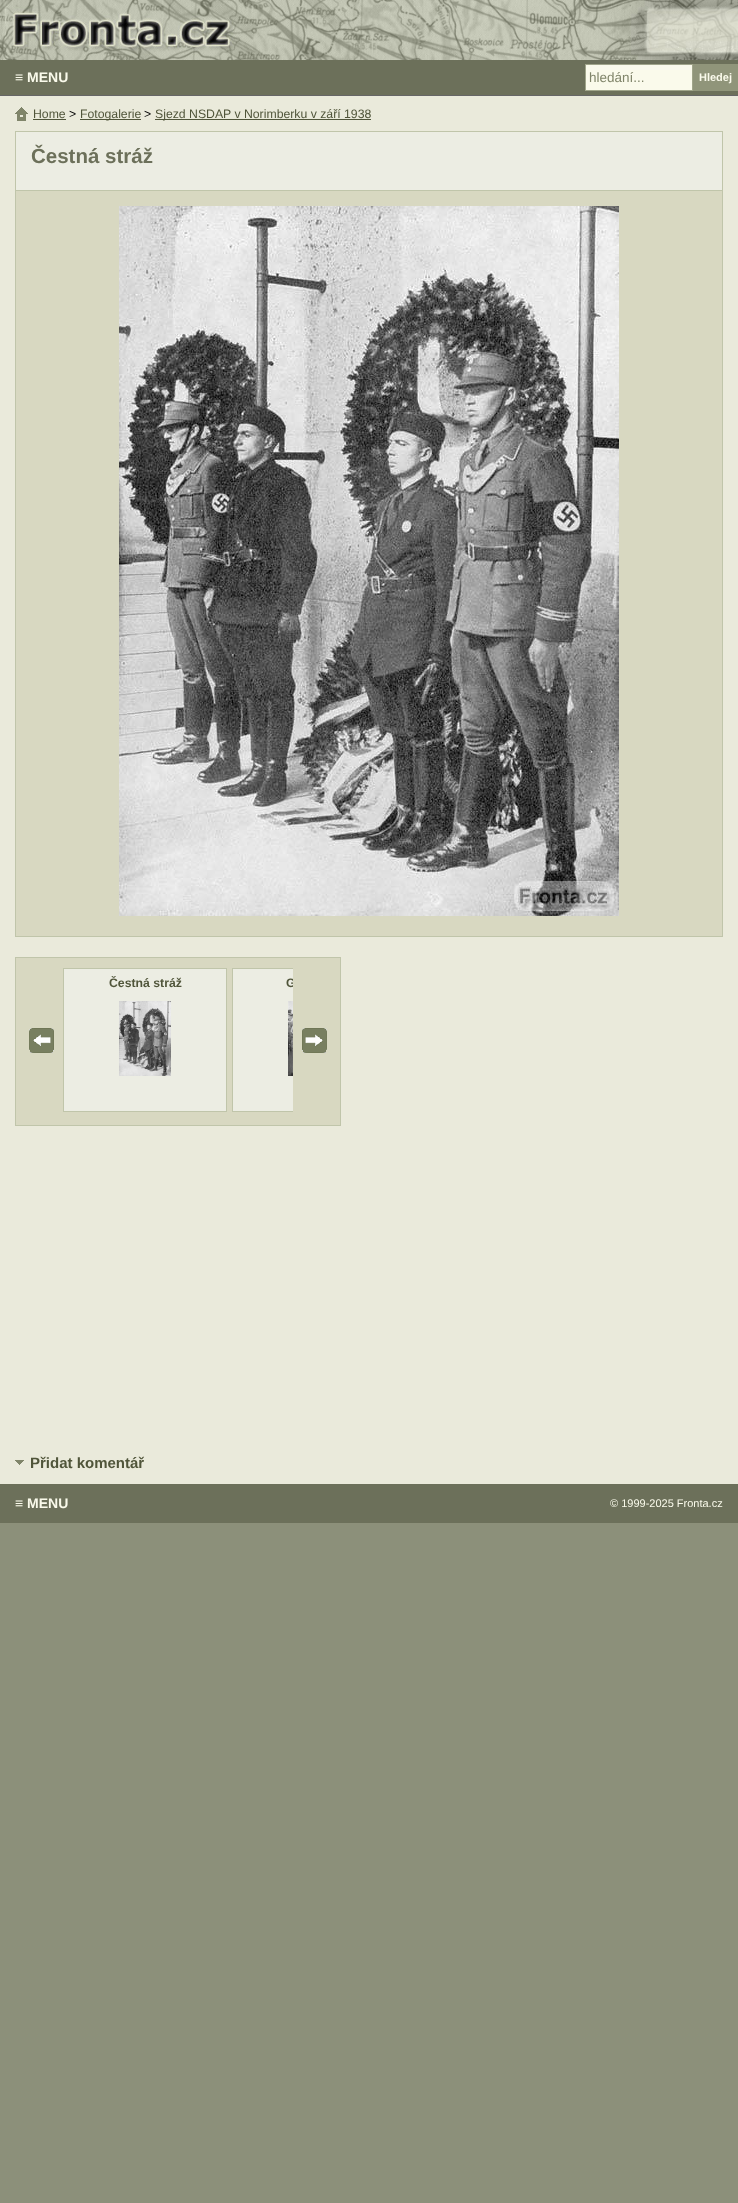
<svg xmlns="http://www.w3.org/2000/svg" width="738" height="2203">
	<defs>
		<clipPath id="clip1"><rect x="63" y="968" width="230" height="144" /></clipPath>
	</defs>
	<rect width="100%" height="100%" fill="#8C907A" />
	<rect x="0" y="96" width="738" height="1388" fill="#EAEADB" />
	<rect x="0" y="60" width="738" height="35" fill="#6C705A" />
	<rect x="0" y="95" width="738" height="1" fill="#666666" />
	<text x="15" y="82" font-family="Liberation Sans" font-size="14" font-weight="700" fill="#FAFAEB">≡ MENU</text>
	<image x="15" y="107" width="13" height="14" href="assets/img1.png" />
	<text x="33" y="118" font-family="Liberation Sans" font-size="12.25" fill="#50553A">Home</text>
	<rect x="33" y="119" width="33" height="1" fill="#50553A" />
	<text x="69" y="118" font-family="Liberation Sans" font-size="12.25" fill="#000000">&gt;</text>
	<rect x="80" y="119" width="61" height="1" fill="#50553A" />
	<text x="80" y="118" font-family="Liberation Sans" font-size="12.25" fill="#50553A">Fotogalerie</text>
	<text x="144" y="118" font-family="Liberation Sans" font-size="12.25" fill="#000000">&gt;</text>
	<rect x="155" y="119" width="216" height="1" fill="#50553A" />
	<text x="155" y="118" font-family="Liberation Sans" font-size="12.25" fill="#50553A">Sjezd NSDAP v Norimberku v září 1938</text>
	<rect x="16" y="132" width="706" height="58" fill="#ECEDE3" />
	<rect x="15" y="131" width="708" height="1" fill="#C0C5AA" />
	<rect x="722" y="131" width="1" height="59" fill="#C0C5AA" />
	<rect x="15" y="131" width="1" height="59" fill="#C0C5AA" />
	<text x="31" y="163" font-family="Liberation Sans" font-size="20.5" font-weight="700" fill="#6C705A">Čestná stráž</text>
	<rect x="15.5" y="190.5" width="707" height="746" fill="#D8D8C1" stroke="#C0C5AA" />
	<image x="119" y="206" width="500" height="710" href="assets/img2.png" />
	<rect x="15.5" y="957.5" width="325" height="168" fill="#D8D8C1" stroke="#C0C5AA" />
	<rect x="63.5" y="968.5" width="163" height="143" fill="#ECEDE3" stroke="#C0C5AA" />
	<text x="109" y="987" font-family="Liberation Sans" font-size="12.25" font-weight="700" fill="#50553A">Čestná stráž</text>
	<image x="119" y="1001" width="52" height="75" href="assets/img3.png" />
	<rect x="233" y="969" width="60" height="142" fill="#ECEDE3" />
	<g clip-path="url(#clip1)">
		<rect x="232.5" y="968.5" width="163" height="143" fill="none" stroke="#C0C5AA" />
		<text x="286" y="987" font-family="Liberation Sans" font-size="12.25" font-weight="700" fill="#50553A">G</text>
	</g>
	<image x="288" y="1001" width="5" height="75" href="assets/img4.png" />
	<image x="29" y="1028" width="25" height="25" href="assets/img5.png" />
	<image x="302" y="1028" width="25" height="25" href="assets/img6.png" />
	<image x="15" y="1460" width="9" height="5" href="assets/img7.png" />
	<text x="30" y="1468" font-family="Liberation Sans" font-size="15" font-weight="700" fill="#50553A">Přidat komentář</text>
	<image x="0" y="0" width="738" height="60" href="assets/img8.png" />
	<rect x="585.5" y="64.5" width="107" height="26" fill="#FAFAEB" stroke="#A0A58A" />
	<text x="589" y="82" font-family="Liberation Sans" font-size="13.5" fill="#80856A">hledání...</text>
	<rect x="693" y="64" width="45" height="27" fill="#90957A" />
	<text x="699" y="81" font-family="Liberation Sans" font-size="11" font-weight="700" fill="#FAFAEB">Hledej</text>
	<rect x="0" y="1484" width="738" height="39" fill="#6C705A" />
	<text x="15" y="1508" font-family="Liberation Sans" font-size="14" font-weight="700" fill="#FAFAEB">≡ MENU</text>
	<text x="610" y="1507" font-family="Liberation Sans" font-size="11" fill="#FAFAEB">© 1999-2025 Fronta.cz</text>
</svg>
